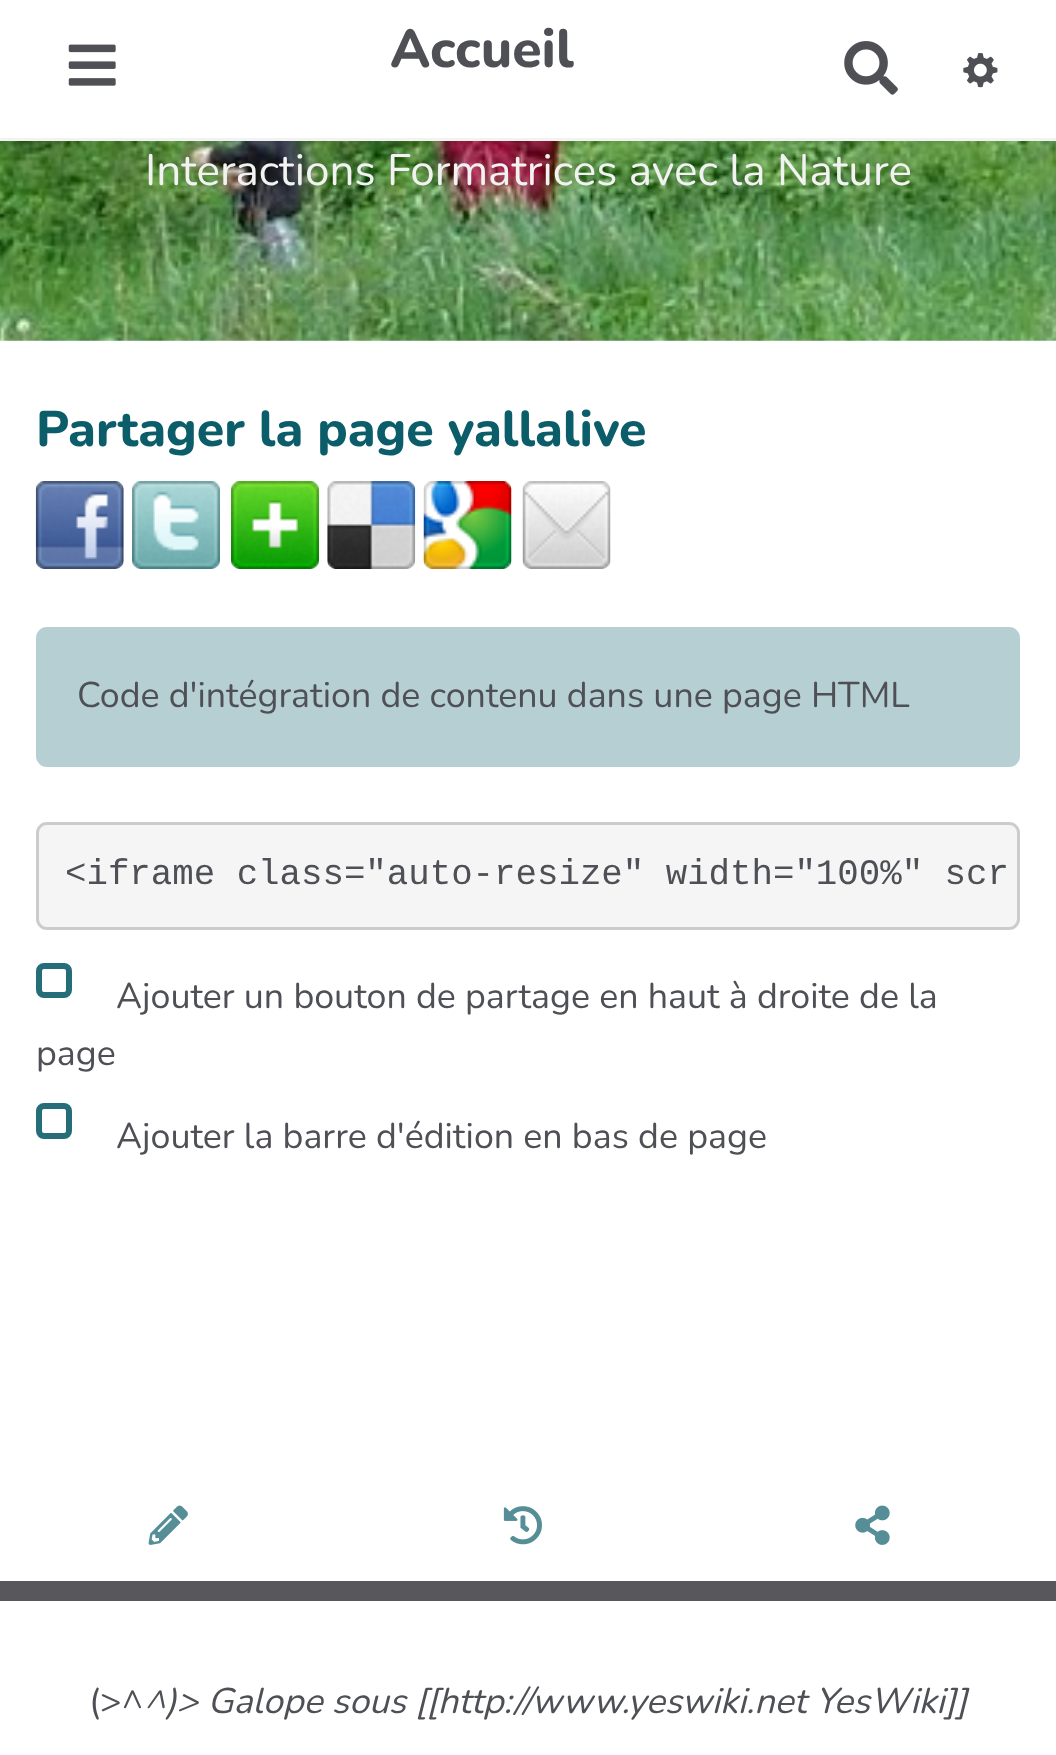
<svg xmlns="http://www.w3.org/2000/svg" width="1056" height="1755">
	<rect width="100%" height="100%" fill="#FFFFFF" />
	<rect x="0" y="138" width="1056" height="3" fill="#F2F2F2" />
	<image x="68" y="44" width="48" height="42" href="assets/img1.png" />
	<text x="390" y="67" font-family="Nunito" font-size="53.5" font-weight="800" fill="#4E5056">Accueil</text>
	<image x="844" y="41" width="54" height="54" href="assets/img2.png" />
	<image x="963" y="53" width="35" height="35" href="assets/img3.png" />
	<image x="0" y="141" width="1056" height="200" href="assets/img4.png" />
	<text x="145" y="185" font-family="Nunito" font-size="44" fill="#F2F2F2">Interactions Formatrices avec la Nature</text>
	<text x="36" y="446" font-family="Nunito" font-size="50" font-weight="800" fill="#0C5D6A">Partager la page yallalive</text>
	<image x="35" y="481" width="89" height="88" href="assets/img5.png" />
	<image x="132" y="481" width="88" height="88" href="assets/img6.png" />
	<image x="231" y="481" width="88" height="88" href="assets/img7.png" />
	<image x="327" y="481" width="89" height="88" href="assets/img8.png" />
	<image x="423" y="481" width="89" height="88" href="assets/img9.png" />
	<image x="522" y="481" width="89" height="88" href="assets/img10.png" />
	<rect x="36" y="627" width="984" height="140" rx="11" fill="#B6CFD3" />
	<text x="77" y="707" font-family="Nunito" font-size="35.75" fill="#4E5056">Code d'intégration de contenu dans une page HTML</text>
	<rect x="37.5" y="823.5" width="981" height="105" rx="9.5" fill="#F5F5F5" stroke="#CCCCCC" stroke-width="3" />
	<text x="65" y="884" font-family="Liberation Mono" font-size="35.75" fill="#4E5056">&lt;iframe class="auto-resize" width="100%" scr</text>
	<rect x="39" y="966" width="30" height="29" rx="5" fill="none" stroke="#246D79" stroke-width="6" />
	<g font-family="Nunito" font-size="35.75" fill="#4E5056">
		<text x="116" y="1008">Ajouter un bouton de partage en haut à droite de la</text>
		<text x="36" y="1065">page</text>
	</g>
	<rect x="39" y="1106" width="30" height="30" rx="5" fill="none" stroke="#246D79" stroke-width="6" />
	<text x="116" y="1148" font-family="Nunito" font-size="35.75" fill="#4E5056">Ajouter la barre d'édition en bas de page</text>
	<image x="148" y="1505" width="40" height="40" href="assets/img11.png" />
	<image x="503" y="1506" width="39" height="39" href="assets/img12.png" />
	<image x="855" y="1505" width="35" height="40" href="assets/img13.png" />
	<rect x="0" y="1581" width="1056" height="20" fill="#57575C" />
	<text x="89" y="1713" font-family="Nunito" font-size="35.75" fill="#4E5056">(&gt;^</text>
	<text x="144" y="1713" font-family="Nunito" font-size="35.75" font-style="italic" fill="#4E5056">^)&gt; Galope sous [[http://www.yeswiki.net YesWiki]]</text>
</svg>
